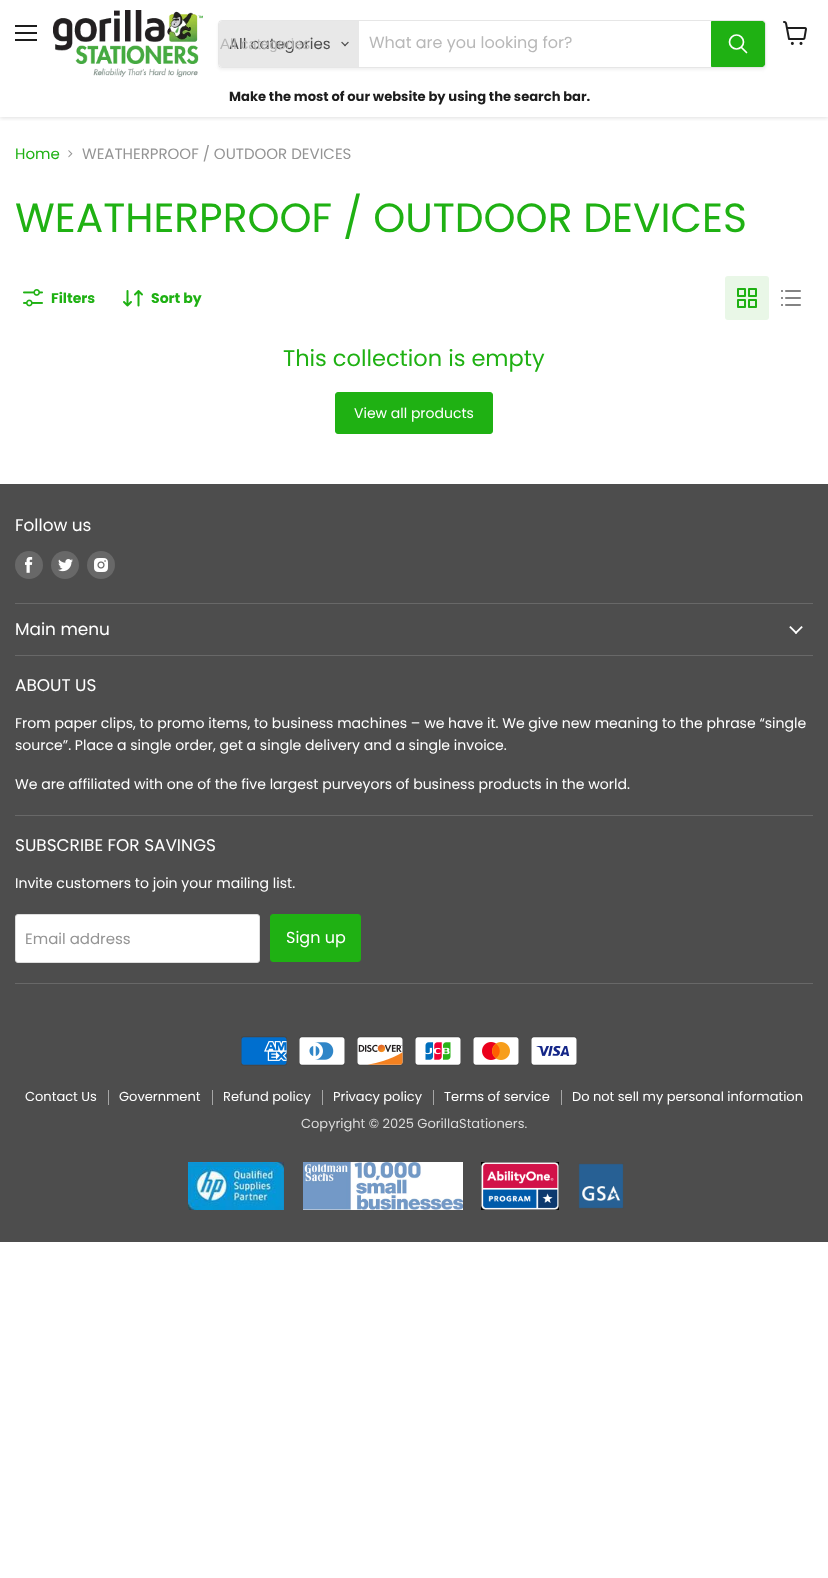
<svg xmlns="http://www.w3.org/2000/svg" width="828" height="1578">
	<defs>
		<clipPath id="clip1"><rect x="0" y="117" width="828" height="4" /></clipPath>
		<clipPath id="clip2"><path d="M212 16H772V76H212ZM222 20H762C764 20 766 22 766 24V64C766 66 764 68 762 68H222C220 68 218 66 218 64V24C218 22 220 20 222 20Z" clip-rule="evenodd" /></clipPath>
	</defs>
	<rect width="100%" height="100%" fill="#FFFFFF" />
	<g clip-path="url(#clip1)">
		<rect x="0" y="1" width="828" height="117" fill="#808080" fill-opacity="0.25" filter="blur(2px)" />
	</g>
	<rect x="15" y="25" width="22" height="2" fill="#1D1D1D" />
	<rect x="15" y="32" width="22" height="2" fill="#1D1D1D" />
	<rect x="15" y="39" width="22" height="2" fill="#1D1D1D" />
	<image x="783" y="21" width="24" height="24" href="assets/img1.png" />
	<image x="53" y="10" width="150" height="67" href="assets/img2.png" />
	<g clip-path="url(#clip2)">
		<rect x="218" y="22" width="548" height="48" rx="4" fill="#808080" fill-opacity="0.11" filter="blur(1.5px)" />
	</g>
	<rect x="218.5" y="20.5" width="547" height="47" rx="3.5" fill="none" stroke="#808080" stroke-opacity="0.2" />
	<path d="M222 21H359V67H222C220.5 67 219 65.5 219 64V24C219 22.5 220.5 21 222 21Z" fill="#E8E8E8" />
	<text x="229" y="49" font-family="Poppins" font-size="15" fill="#4D4D4D">All categories</text>
	<text x="220" y="49" font-family="Liberation Sans" font-size="15" fill="#B8B8B8">All categories</text>
	<image x="341" y="41" width="8" height="6" href="assets/img3.png" />
	<text x="369" y="48" font-family="Poppins" font-size="16" fill="#B8B8B8">What are you looking for?</text>
	<path d="M711.5 21.5H762C763.5 21.5 764.5 22.5 764.5 24V64C764.5 65.5 763.5 66.5 762 66.5H711.5Z" fill="#1FB113" stroke="#1FB113" />
	<path d="M746.5 52.5L741.5 47.5" fill="none" stroke="#FFFFFF" stroke-width="1.7" stroke-linecap="round" />
	<circle cx="736.5" cy="42" r="7" fill="none" stroke="#FFFFFF" stroke-width="1.7" />
	<text x="229" y="101" font-family="Poppins" font-size="13.1" font-weight="700" fill="#1D1D1D">Make the most of our website by using the search bar.</text>
	<text x="15" y="159" font-family="Poppins" font-size="15" fill="#1FB113">Home</text>
	<image x="68" y="150" width="5" height="8" href="assets/img4.png" />
	<text x="82" y="159" font-family="Poppins" font-size="15" fill="#949494">WEATHERPROOF / OUTDOOR DEVICES</text>
	<text x="15" y="232" font-family="Poppins" font-size="40.75" fill="#1FB113">WEATHERPROOF / OUTDOOR DEVICES</text>
	<image x="23" y="289" width="20" height="18" href="assets/img5.png" />
	<text x="51" y="303" font-family="Poppins" font-size="14.05" font-weight="700" fill="#1FB113">Filters</text>
	<image x="123" y="290" width="20" height="17" href="assets/img6.png" />
	<text x="151" y="303" font-family="Poppins" font-size="14.05" font-weight="700" fill="#1FB113">Sort by</text>
	<rect x="725" y="276" width="44" height="44" rx="3" fill="#E9F7E7" />
	<image x="737" y="288" width="20" height="20" href="assets/img7.png" />
	<image x="781" y="290" width="20" height="16" href="assets/img8.png" />
	<text x="283" y="366" font-family="Poppins" font-size="22.5" fill="#1FB113">This collection is empty</text>
	<rect x="335.5" y="392.5" width="157" height="41" rx="2.5" fill="#1FB113" stroke="#1FB113" />
	<text x="354" y="418" font-family="Poppins" font-size="14" fill="#FFFFFF">View all products</text>
	<rect x="0" y="484" width="828" height="758" fill="#4D4D4D" />
	<rect x="15" y="603" width="798" height="1" fill="#686868" />
	<text x="15" y="531" font-family="Poppins" font-size="16.9" fill="#FFFFFF">Follow us</text>
	<circle cx="29" cy="565" r="14" fill="#686868" />
	<image x="25" y="557" width="8" height="16" href="assets/img9.png" />
	<circle cx="65" cy="565" r="14" fill="#686868" />
	<image x="58" y="559" width="15" height="13" href="assets/img10.png" />
	<circle cx="101" cy="565" r="14" fill="#686868" />
	<image x="94" y="558" width="14" height="14" href="assets/img11.png" />
	<rect x="15" y="655" width="798" height="1" fill="#686868" />
	<text x="15" y="635" font-family="Poppins" font-size="16.9" fill="#FFFFFF">Main menu</text>
	<image x="789" y="626" width="14" height="8" href="assets/img12.png" />
	<rect x="15" y="815" width="798" height="1" fill="#686868" />
	<text x="15" y="691" font-family="Poppins" font-size="16.9" fill="#FFFFFF">ABOUT US</text>
	<g font-family="Poppins" font-size="14.05" fill="#FFFFFF">
		<text x="15" y="728">From paper clips, to promo items, to business machines – we have it. We give new meaning to the phrase “single</text>
		<text x="15" y="750">source”. Place a single order, get a single delivery and a single invoice.</text>
		<text x="15" y="789">We are affiliated with one of the five largest purveyors of business products in the world.</text>
	</g>
	<rect x="15" y="983" width="798" height="1" fill="#686868" />
	<text x="15" y="851" font-family="Poppins" font-size="16.9" fill="#FFFFFF">SUBSCRIBE FOR SAVINGS</text>
	<text x="15" y="888" font-family="Poppins" font-size="14.05" fill="#FFFFFF">Invite customers to join your mailing list.</text>
	<rect x="15.5" y="914.5" width="244" height="48" rx="2.5" fill="#FFFFFF" stroke="#DDDDDD" />
	<text x="25" y="944" font-family="Poppins" font-size="15" fill="#949494">Email address</text>
	<rect x="270.5" y="914.5" width="90" height="47" rx="2.5" fill="#1FB113" stroke="#1FB113" />
	<text x="286" y="943" font-family="Poppins" font-size="16" fill="#FFFFFF">Sign up</text>
	<image x="241" y="1036" width="46" height="30" href="assets/img13.png" />
	<image x="299" y="1036" width="46" height="30" href="assets/img14.png" />
	<image x="357" y="1036" width="46" height="30" href="assets/img15.png" />
	<image x="415" y="1036" width="46" height="30" href="assets/img16.png" />
	<image x="473" y="1036" width="46" height="30" href="assets/img17.png" />
	<image x="531" y="1036" width="46" height="30" href="assets/img18.png" />
	<rect x="108" y="1090" width="1" height="15" fill="#A6A6A6" />
	<text x="25" y="1101" font-family="Poppins" font-size="13" fill="#FFFFFF">Contact Us</text>
	<rect x="212" y="1090" width="1" height="15" fill="#A6A6A6" />
	<text x="119" y="1101" font-family="Poppins" font-size="13" fill="#FFFFFF">Government</text>
	<rect x="322" y="1090" width="1" height="15" fill="#A6A6A6" />
	<text x="223" y="1101" font-family="Poppins" font-size="13" fill="#FFFFFF">Refund policy</text>
	<rect x="433" y="1090" width="1" height="15" fill="#A6A6A6" />
	<text x="333" y="1101" font-family="Poppins" font-size="13" fill="#FFFFFF">Privacy policy</text>
	<rect x="561" y="1090" width="1" height="15" fill="#A6A6A6" />
	<g font-family="Poppins" font-size="13" fill="#FFFFFF">
		<text x="444" y="1101">Terms of service</text>
		<text x="572" y="1101">Do not sell my personal information</text>
	</g>
	<text x="301" y="1128" font-family="Poppins" font-size="13" fill="#DBDBDB">Copyright © 2025 GorillaStationers.</text>
	<image x="188" y="1162" width="96" height="48" href="assets/img19.png" />
	<image x="303" y="1162" width="160" height="48" href="assets/img20.png" />
	<image x="481" y="1162" width="78" height="48" href="assets/img21.png" />
	<image x="578" y="1163" width="46" height="46" href="assets/img22.png" />
</svg>
